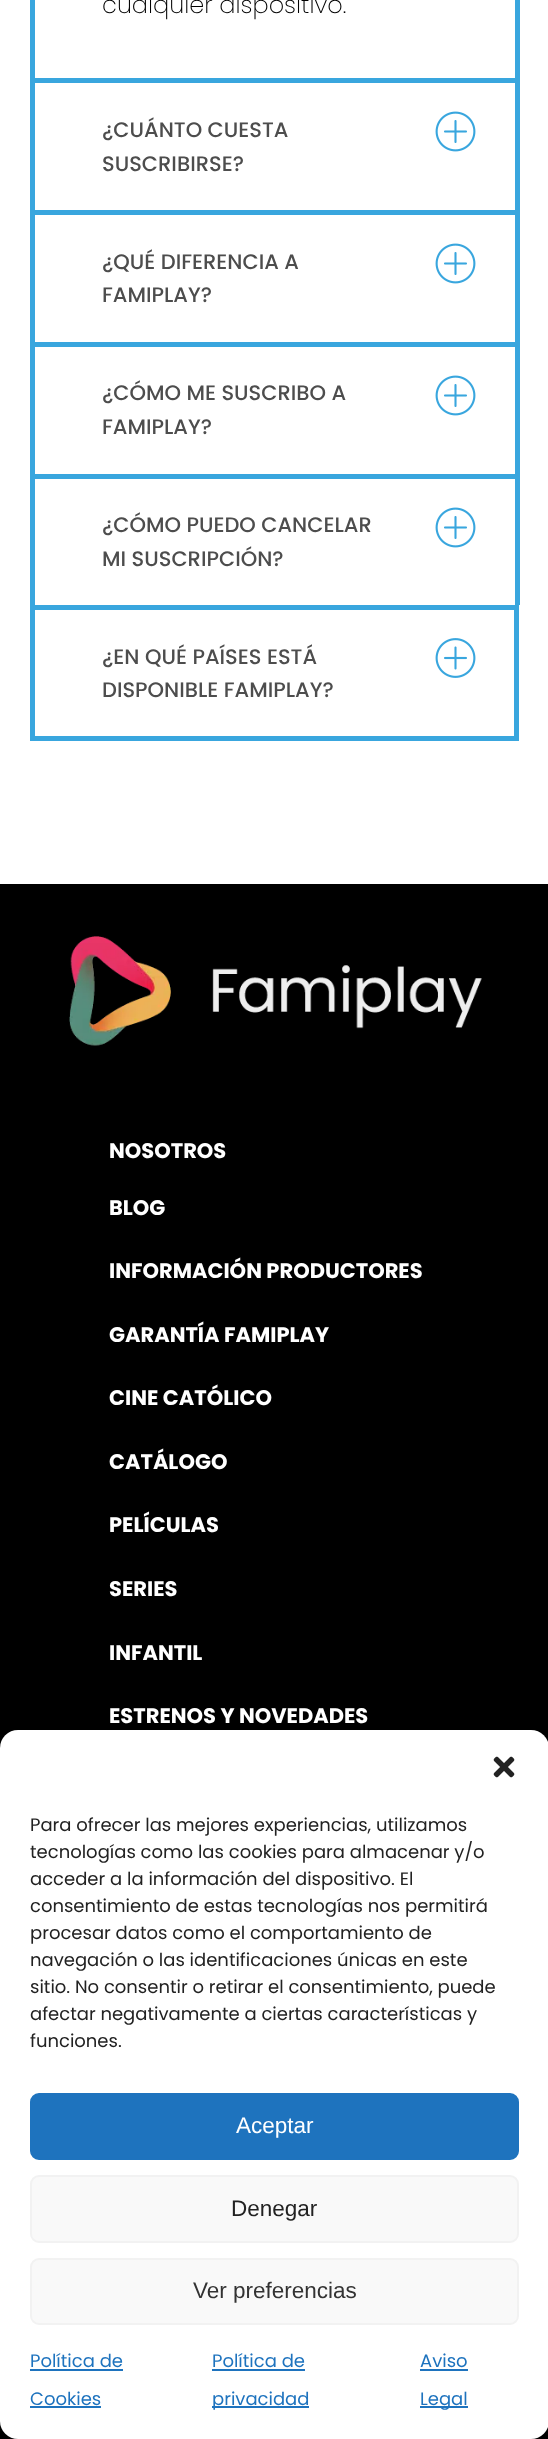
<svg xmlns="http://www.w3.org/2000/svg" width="548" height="2439">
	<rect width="100%" height="100%" fill="#FFFFFF" />
	<rect x="515" y="0" width="5" height="78" fill="#39A6DE" />
	<rect x="30" y="0" width="5" height="78" fill="#39A6DE" />
	<text x="102" y="13" font-family="Poppins" font-size="24" font-weight="200" fill="#000000">cualquier dispositivo.</text>
	<rect x="30" y="78" width="489" height="5" fill="#39A6DE" />
	<rect x="515" y="78" width="5" height="132" fill="#39A6DE" />
	<rect x="30" y="78" width="5" height="132" fill="#39A6DE" />
	<g font-family="Poppins" font-size="21" font-weight="500" fill="#4D4D4D">
		<text x="102" y="137">¿CUÁNTO CUESTA</text>
		<text x="102" y="171">SUSCRIBIRSE?</text>
	</g>
	<image x="435" y="111" width="41" height="41" href="assets/img1.png" />
	<rect x="30" y="210" width="489" height="5" fill="#39A6DE" />
	<rect x="515" y="210" width="5" height="132" fill="#39A6DE" />
	<rect x="30" y="210" width="5" height="132" fill="#39A6DE" />
	<g font-family="Poppins" font-size="21" font-weight="500" fill="#4D4D4D">
		<text x="102" y="269">¿QUÉ DIFERENCIA A</text>
		<text x="102" y="302">FAMIPLAY?</text>
	</g>
	<image x="435" y="243" width="41" height="41" href="assets/img1.png" />
	<rect x="30" y="342" width="489" height="5" fill="#39A6DE" />
	<rect x="515" y="342" width="5" height="132" fill="#39A6DE" />
	<rect x="30" y="342" width="5" height="132" fill="#39A6DE" />
	<g font-family="Poppins" font-size="21" font-weight="500" fill="#4D4D4D">
		<text x="102" y="400">¿CÓMO ME SUSCRIBO A</text>
		<text x="102" y="434">FAMIPLAY?</text>
	</g>
	<image x="435" y="375" width="41" height="41" href="assets/img1.png" />
	<rect x="30" y="474" width="489" height="5" fill="#39A6DE" />
	<rect x="515" y="474" width="5" height="131" fill="#39A6DE" />
	<rect x="30" y="474" width="5" height="131" fill="#39A6DE" />
	<g font-family="Poppins" font-size="21" font-weight="500" fill="#4D4D4D">
		<text x="102" y="532">¿CÓMO PUEDO CANCELAR</text>
		<text x="102" y="566">MI SUSCRIPCIÓN?</text>
	</g>
	<image x="435" y="507" width="41" height="41" href="assets/img1.png" />
	<rect x="32.5" y="607.5" width="484" height="131" fill="none" stroke="#39A6DE" stroke-width="5" />
	<g font-family="Poppins" font-size="21" font-weight="500" fill="#4D4D4D">
		<text x="102" y="664">¿EN QUÉ PAÍSES ESTÁ</text>
		<text x="102" y="697">DISPONIBLE FAMIPLAY?</text>
	</g>
	<image x="435" y="638" width="41" height="40" href="assets/img2.png" />
	<rect x="0" y="884" width="548" height="1555" fill="#000000" />
	<image x="69" y="936" width="413" height="110" href="assets/img3.png" />
	<g font-family="Poppins" font-size="21" font-weight="700" fill="#FFFFFF">
		<text x="109" y="1158">NOSOTROS</text>
		<text x="109" y="1215">BLOG</text>
		<text x="109" y="1278">INFORMACIÓN PRODUCTORES</text>
		<text x="109" y="1342">GARANTÍA FAMIPLAY</text>
		<text x="109" y="1405">CINE CATÓLICO</text>
		<text x="109" y="1469">CATÁLOGO</text>
		<text x="109" y="1532">PELÍCULAS</text>
		<text x="109" y="1596">SERIES</text>
		<text x="109" y="1660">INFANTIL</text>
		<text x="109" y="1723">ESTRENOS Y NOVEDADES</text>
	</g>
	<rect x="0" y="1730" width="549" height="709" rx="18" fill="#FFFFFF" />
	<image x="493" y="1756" width="22" height="22" href="assets/img4.png" />
	<g font-family="Poppins" font-size="18" fill="#222222">
		<text x="30" y="1831">Para ofrecer las mejores experiencias, utilizamos</text>
		<text x="30" y="1858">tecnologías como las cookies para almacenar y/o</text>
		<text x="30" y="1885">acceder a la información del dispositivo. El</text>
		<text x="30" y="1912">consentimiento de estas tecnologías nos permitirá</text>
		<text x="30" y="1939">procesar datos como el comportamiento de</text>
		<text x="30" y="1966">navegación o las identificaciones únicas en este</text>
		<text x="30" y="1993">sitio. No consentir o retirar el consentimiento, puede</text>
		<text x="30" y="2020">afectar negativamente a ciertas características y</text>
		<text x="30" y="2047">funciones.</text>
	</g>
	<rect x="31" y="2094" width="487" height="65" rx="8" fill="#1E73BE" stroke="#1E73BE" stroke-width="2" />
	<text x="236" y="2133" font-family="Liberation Sans" font-size="22.5" fill="#FFFFFF">Aceptar</text>
	<rect x="31" y="2176" width="487" height="66" rx="8" fill="#F9F9F9" stroke="#F2F2F2" stroke-width="2" />
	<text x="231" y="2216" font-family="Liberation Sans" font-size="22.5" fill="#222222">Denegar</text>
	<rect x="31" y="2259" width="487" height="65" rx="8" fill="#F9F9F9" stroke="#F2F2F2" stroke-width="2" />
	<text x="193" y="2298" font-family="Liberation Sans" font-size="22.5" fill="#333333">Ver preferencias</text>
	<text x="30" y="2367" font-family="Poppins" font-size="18" fill="#1E73BE">Política de</text>
	<rect x="30" y="2369" width="93" height="2" fill="#1E73BE" />
	<text x="30" y="2405" font-family="Poppins" font-size="18" fill="#1E73BE">Cookies</text>
	<rect x="30" y="2406" width="71" height="2" fill="#1E73BE" />
	<text x="212" y="2367" font-family="Poppins" font-size="18" fill="#1E73BE">Política de</text>
	<rect x="212" y="2369" width="93" height="2" fill="#1E73BE" />
	<rect x="212" y="2406" width="97" height="2" fill="#1E73BE" />
	<g font-family="Poppins" font-size="18" fill="#1E73BE">
		<text x="212" y="2405">privacidad</text>
		<text x="420" y="2367">Aviso</text>
	</g>
	<rect x="420" y="2369" width="48" height="2" fill="#1E73BE" />
	<rect x="420" y="2406" width="48" height="2" fill="#1E73BE" />
	<text x="420" y="2405" font-family="Poppins" font-size="18" fill="#1E73BE">Legal</text>
</svg>
